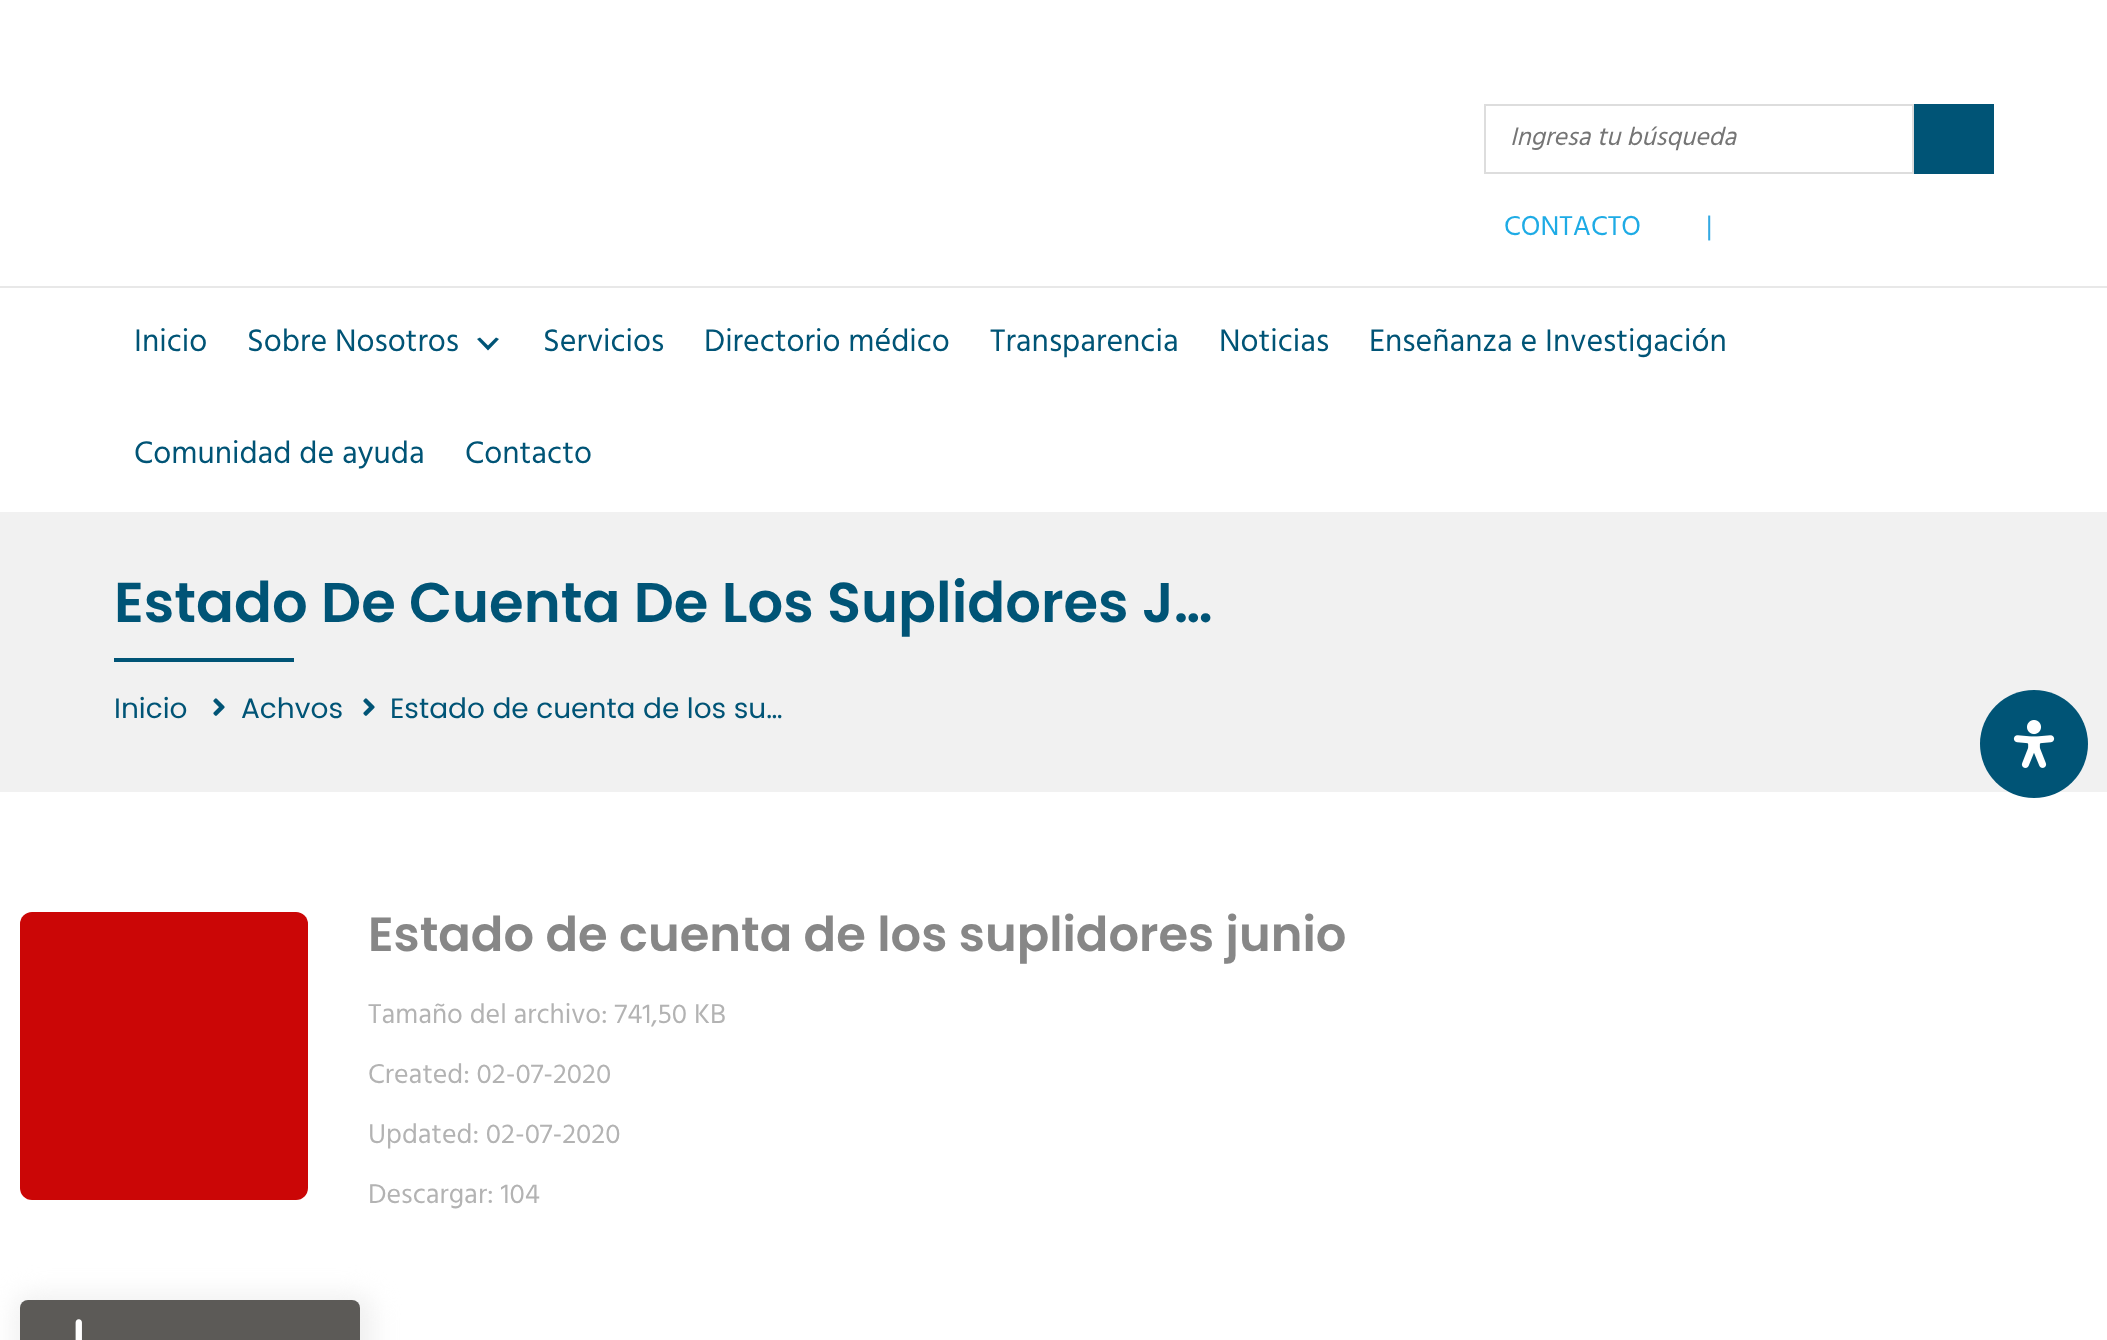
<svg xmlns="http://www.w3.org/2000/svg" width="2107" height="1340">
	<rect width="100%" height="100%" fill="#FFFFFF" />
	<rect x="0" y="286" width="2107" height="2" fill="#E8E8E8" />
	<rect x="1485" y="105" width="428" height="68" fill="none" stroke="#DDDDDD" stroke-width="2" />
	<text x="1510" y="145" font-family="Hind" font-size="26" font-style="italic" fill="#757575">Ingresa tu búsqueda</text>
	<rect x="1914" y="104" width="80" height="70" fill="#005476" />
	<text x="1504" y="235" font-family="Hind" font-size="28" fill="#1EABE5">CONTACTO</text>
	<text x="1706" y="235" font-family="Hind" font-size="28" fill="#33A9E3">|</text>
	<g font-family="Hind" font-size="32" fill="#005476">
		<text x="134" y="351">Inicio</text>
		<text x="247" y="351">Sobre Nosotros</text>
	</g>
	<path d="M480 337.5L488 345.5L496 337.5L499 339L488 350.5L477 339Z" fill="#005476" />
	<g font-family="Hind" font-size="32" fill="#005476">
		<text x="543" y="351">Servicios</text>
		<text x="704" y="351">Directorio médico</text>
		<text x="990" y="351">Transparencia</text>
		<text x="1219" y="351">Noticias</text>
		<text x="1369" y="351">Enseñanza e Investigación</text>
		<text x="134" y="463">Comunidad de ayuda</text>
		<text x="465" y="463">Contacto</text>
	</g>
	<rect x="0" y="512" width="2107" height="280" fill="#F1F1F1" />
	<text x="114" y="622" font-family="Poppins" font-size="56" font-weight="600" fill="#005476">Estado De Cuenta De Los Suplidores J…</text>
	<rect x="114" y="658" width="180" height="4" fill="#005476" />
	<text x="114" y="718" font-family="Poppins" font-size="28" fill="#005476">Inicio</text>
	<image x="213" y="698" width="12" height="18" href="assets/img1.png" />
	<text x="241" y="718" font-family="Poppins" font-size="28" fill="#005476">Achvos</text>
	<image x="363" y="698" width="12" height="18" href="assets/img1.png" />
	<text x="390" y="718" font-family="Poppins" font-size="28" fill="#005476">Estado de cuenta de los su…</text>
	<rect x="20" y="912" width="288" height="288" rx="12" fill="#CB0606" />
	<text x="368" y="951" font-family="Poppins" font-size="48" font-weight="600" fill="#878787">Estado de cuenta de los suplidores junio</text>
	<g font-family="Hind" font-size="28" fill="#B3B3B3">
		<text x="368" y="1023">Tamaño del archivo: 741,50 KB</text>
		<text x="368" y="1083">Created: 02-07-2020</text>
		<text x="368" y="1143">Updated: 02-07-2020</text>
		<text x="368" y="1203">Descargar: 104</text>
	</g>
	<rect x="14" y="1294" width="360" height="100" rx="18" fill="#F0F0F0" filter="blur(12px)" />
	<rect x="20" y="1300" width="340" height="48" rx="8" fill="#5C5A57" />
	<image x="75" y="1319" width="7" height="21" href="assets/img2.png" />
	<circle cx="2034" cy="744" r="54" fill="#005476" />
	<image x="2013" y="720" width="42" height="48" href="assets/img3.png" />
</svg>
